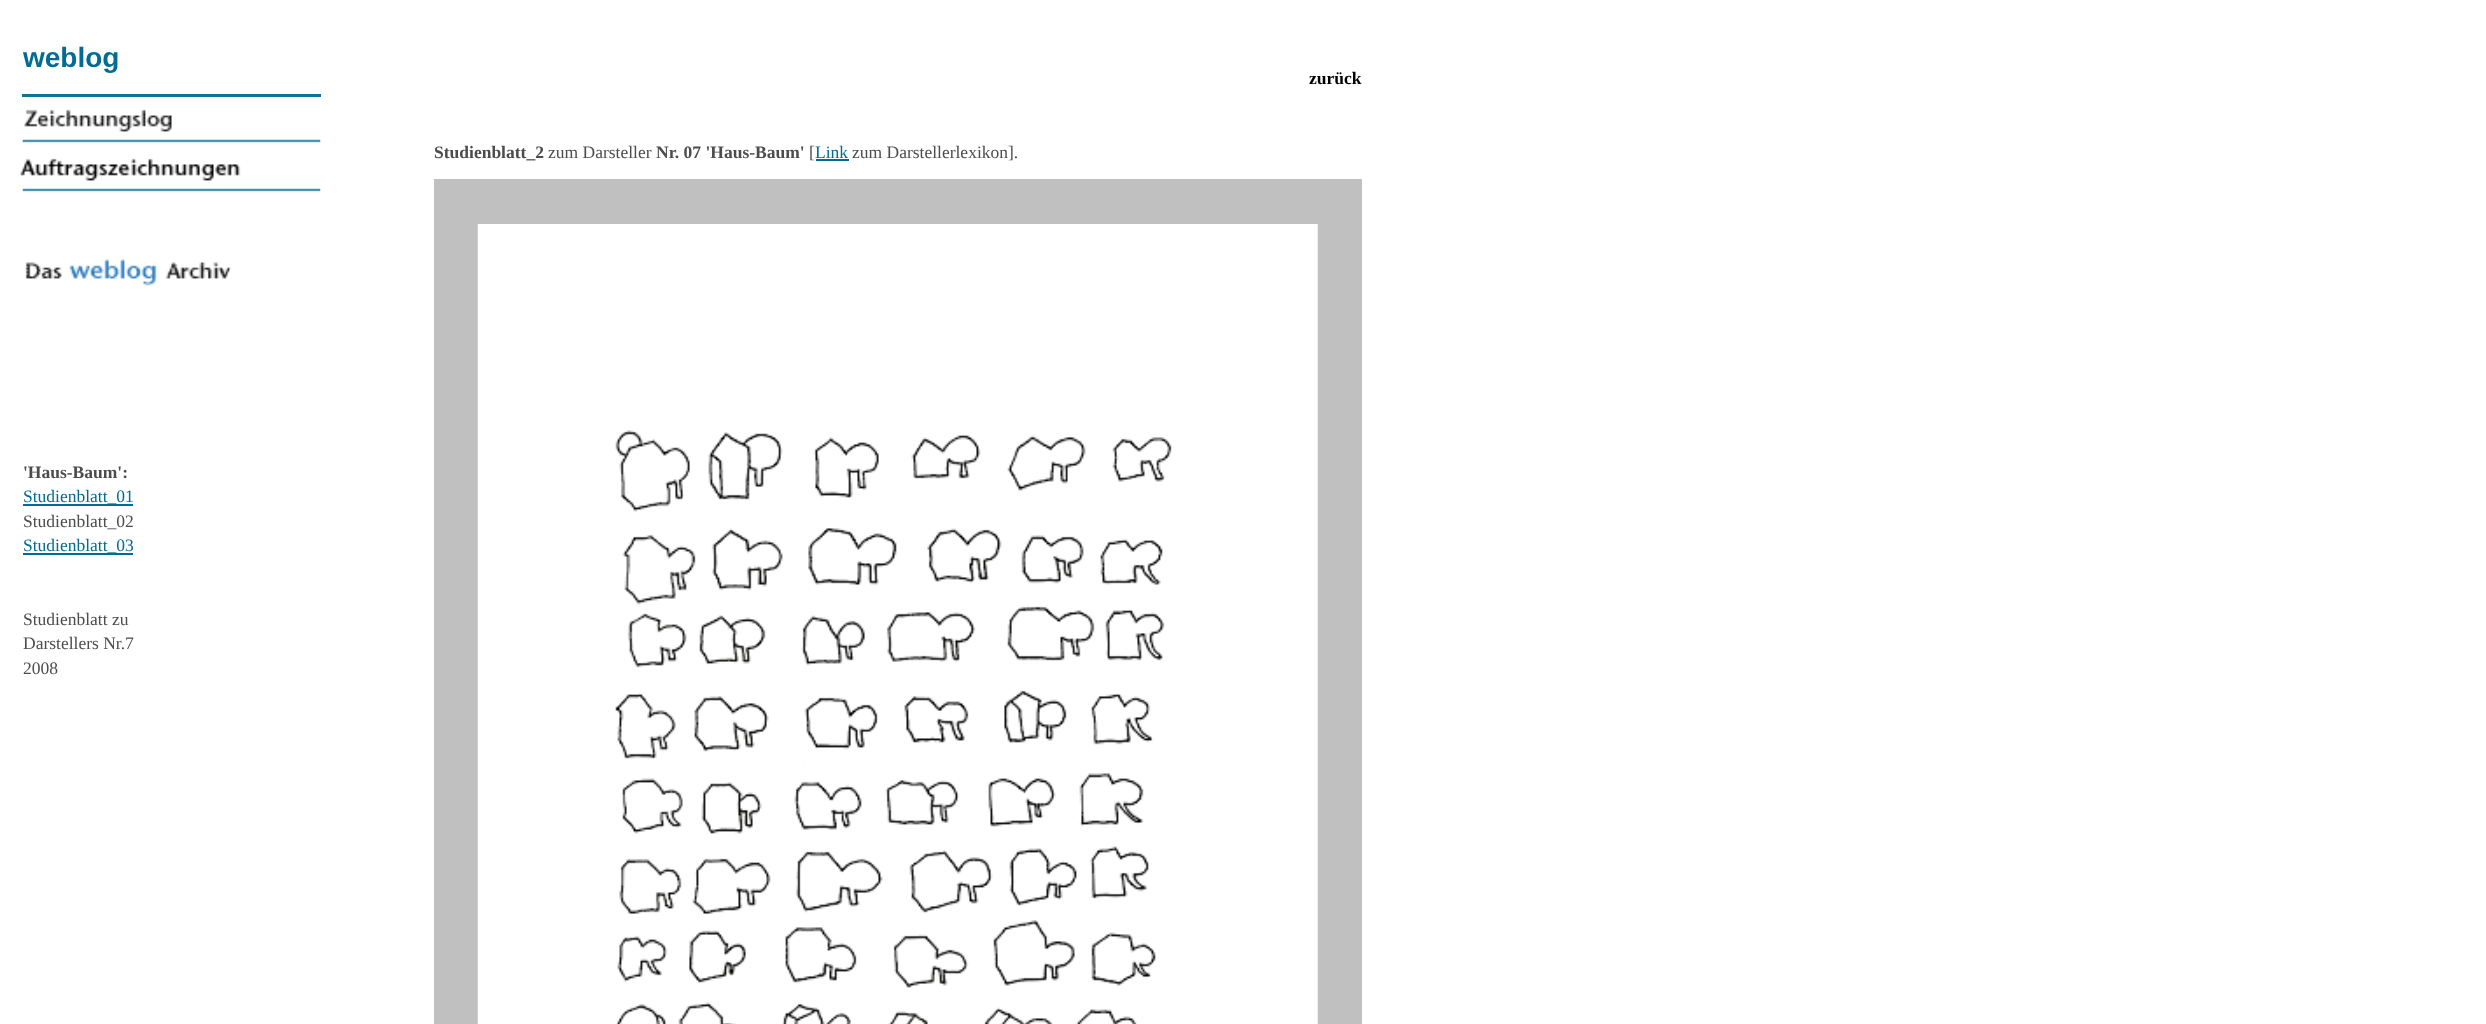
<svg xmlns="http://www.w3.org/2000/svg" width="2486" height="1024">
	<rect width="100%" height="100%" fill="#FFFFFF" />
	<text x="23" y="67" font-family="Liberation Sans" font-size="28" font-weight="700" fill="#026B93">weblog</text>
	<rect x="22" y="94" width="299" height="3" fill="#107499" />
	<image x="24" y="109" width="148" height="23" href="assets/img1.png" />
	<image x="22" y="139" width="299" height="4" href="assets/img2.png" />
	<image x="20" y="158" width="221" height="23" href="assets/img3.png" />
	<image x="22" y="188" width="299" height="4" href="assets/img2.png" />
	<image x="25" y="258" width="207" height="28" href="assets/img4.png" />
	<text x="23" y="478" font-family="Liberation Serif" font-size="17.5" font-weight="700" fill="#4C4C4C">'Haus-Baum':</text>
	<rect x="23" y="504" width="110" height="2" fill="#026B93" />
	<text x="23" y="502" font-family="Liberation Serif" font-size="17.5" fill="#026B93">Studienblatt_01</text>
	<text x="23" y="527" font-family="Liberation Serif" font-size="17.5" fill="#4C4C4C">Studienblatt_02</text>
	<rect x="23" y="553" width="110" height="2" fill="#026B93" />
	<text x="23" y="551" font-family="Liberation Serif" font-size="17.5" fill="#026B93">Studienblatt_03</text>
	<g font-family="Liberation Serif" font-size="17.5" fill="#4C4C4C">
		<text x="23" y="625">Studienblatt zu</text>
		<text x="23" y="649">Darstellers Nr.7</text>
		<text x="23" y="674">2008</text>
	</g>
	<text x="1309" y="84" font-family="Liberation Serif" font-size="17.5" font-weight="700" fill="#000000">zurück</text>
	<text x="434" y="158" font-family="Liberation Serif" font-size="17.5" font-weight="700" fill="#4C4C4C">Studienblatt_2</text>
	<text x="548" y="158" font-family="Liberation Serif" font-size="17.5" fill="#4C4C4C">zum Darsteller</text>
	<text x="656" y="158" font-family="Liberation Serif" font-size="17.5" font-weight="700" fill="#4C4C4C">Nr. 07 'Haus-Baum'</text>
	<text x="809" y="158" font-family="Liberation Serif" font-size="17.5" fill="#4C4C4C">[</text>
	<rect x="816" y="159" width="33" height="2" fill="#026B93" />
	<text x="815" y="158" font-family="Liberation Serif" font-size="17.5" fill="#026B93">Link</text>
	<text x="852" y="158" font-family="Liberation Serif" font-size="17.5" fill="#4C4C4C">zum Darstellerlexikon].</text>
	<rect x="434" y="179" width="928" height="845" fill="#C0C0C0" />
	<image x="477" y="224" width="841" height="800" href="assets/img5.png" />
</svg>
